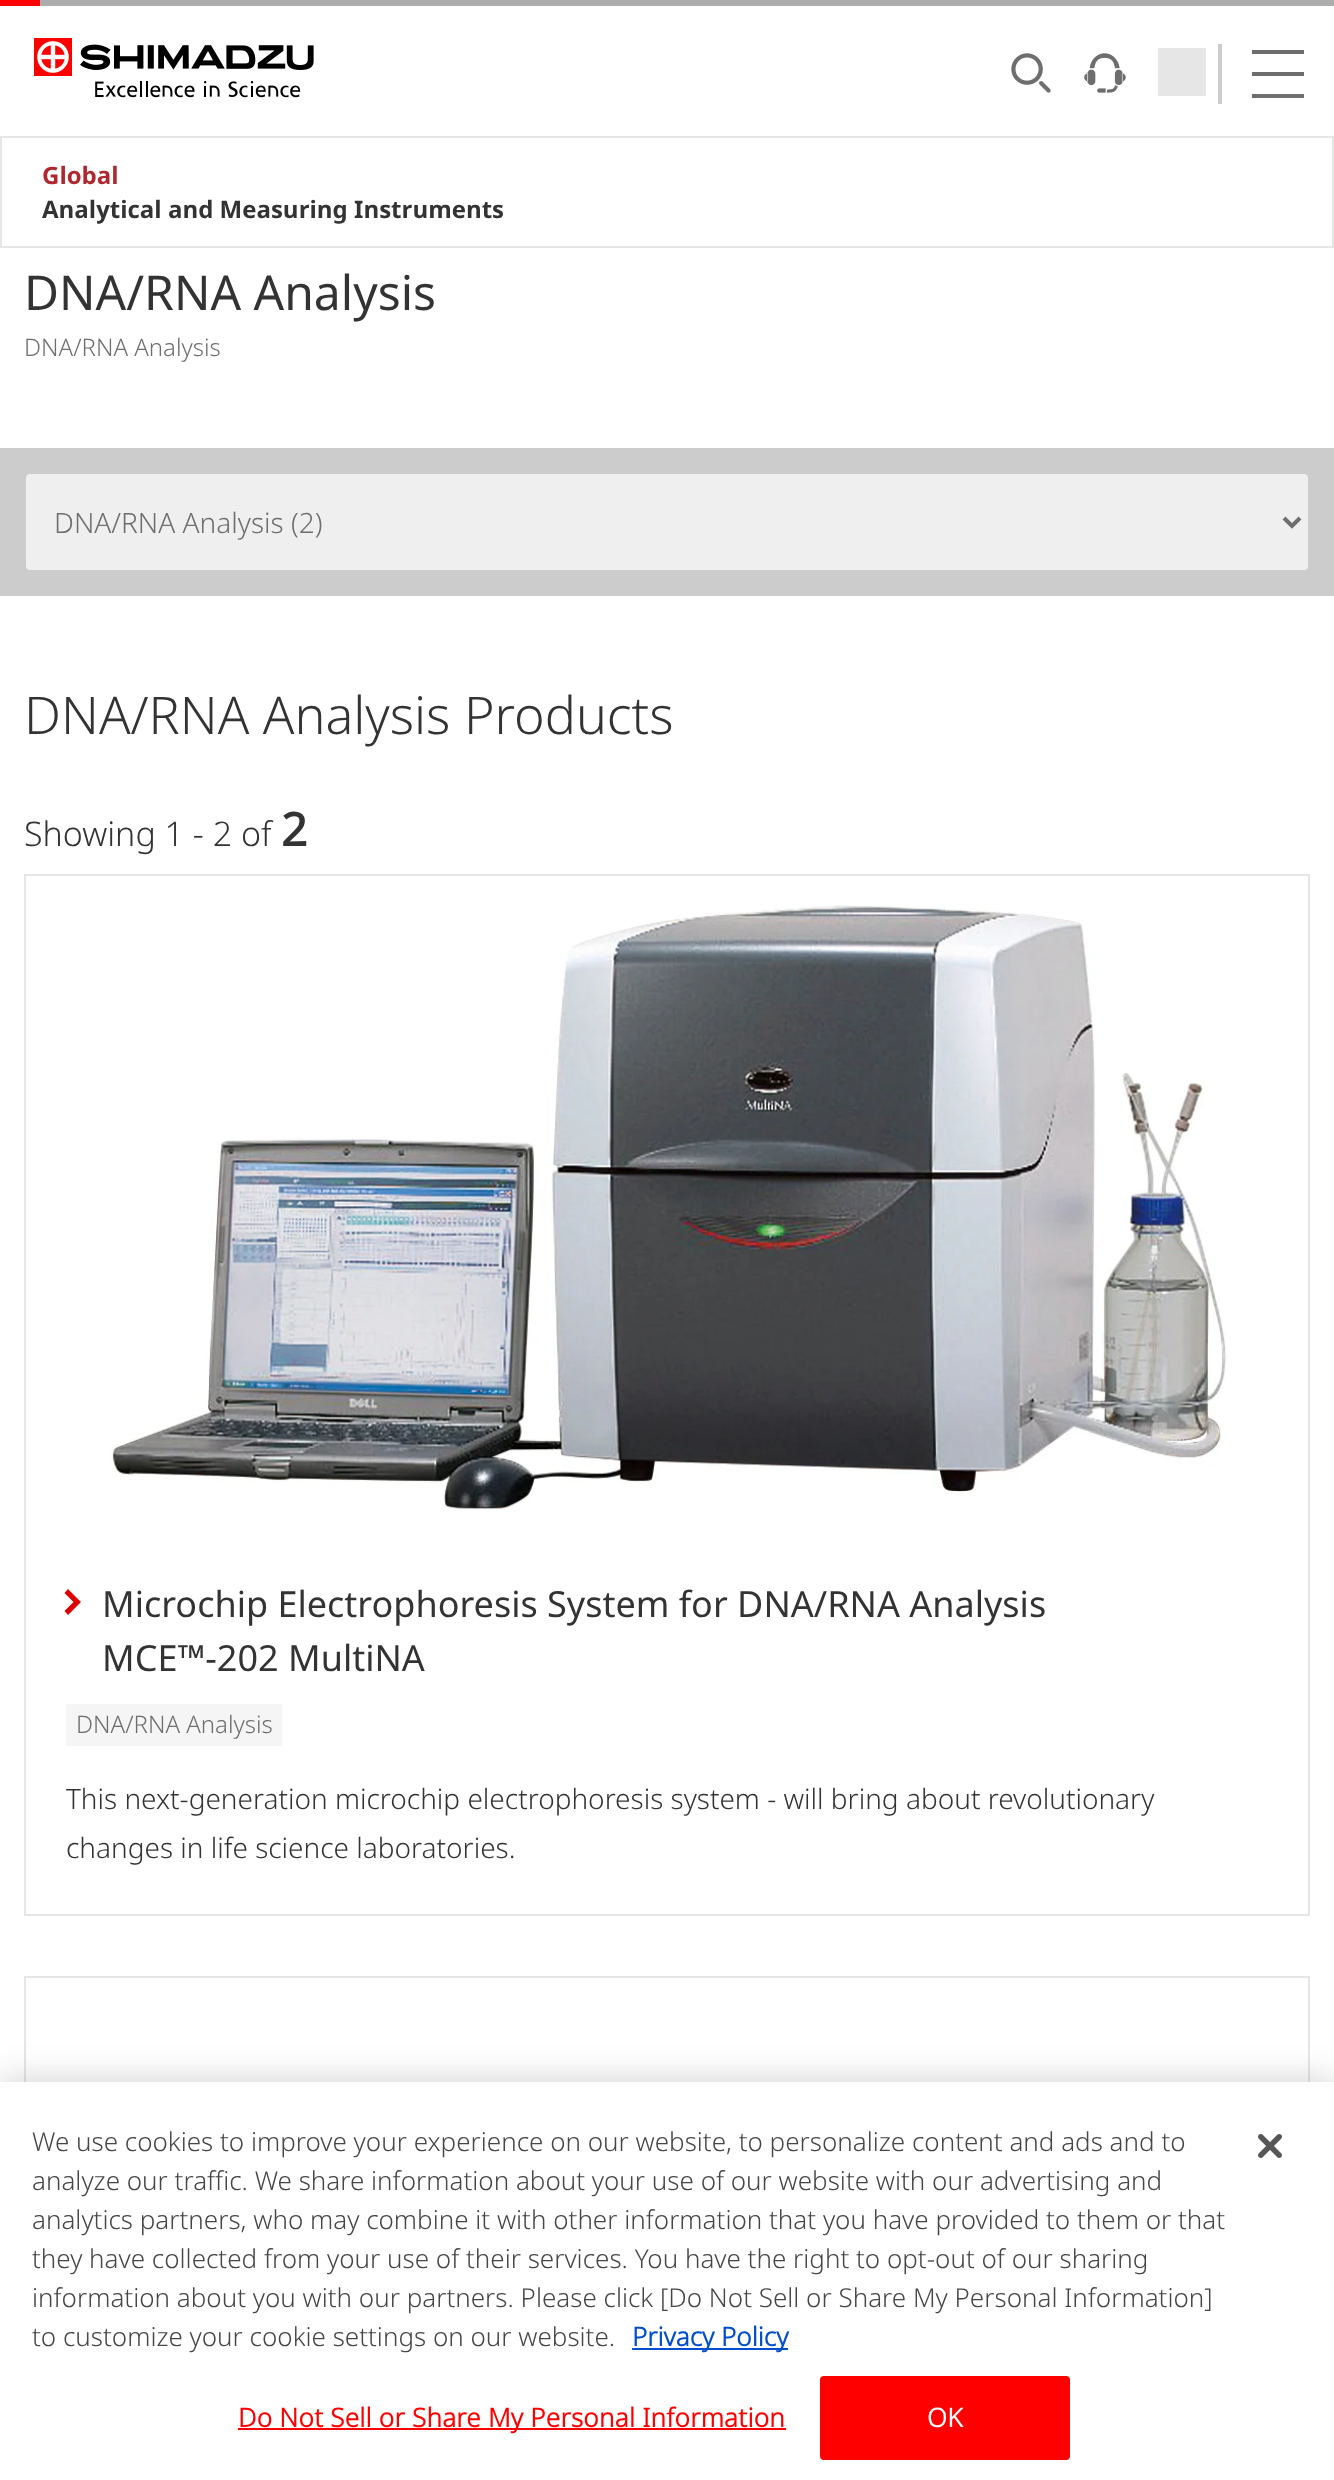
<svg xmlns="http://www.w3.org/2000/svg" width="1334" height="2480">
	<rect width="100%" height="100%" fill="#FFFFFF" />
	<rect x="40" y="0" width="1294" height="6" fill="#ADADAD" />
	<rect x="0" y="0" width="40" height="6" fill="#FF0000" />
	<image x="34" y="38" width="280" height="60" href="assets/img1.png" />
	<image x="1011" y="53" width="40" height="40" href="assets/img2.png" />
	<image x="1084" y="53" width="42" height="40" href="assets/img3.png" />
	<rect x="1158" y="48" width="48" height="16" fill="#E6E6E6" />
	<rect x="1158" y="64" width="48" height="16" fill="#E6E6E6" />
	<rect x="1158" y="80" width="48" height="16" fill="#E6E6E6" />
	<rect x="1218" y="44" width="4" height="60" fill="#CCCCCC" />
	<rect x="1252" y="50" width="52" height="4" fill="#6E6E6E" />
	<rect x="1252" y="72" width="52" height="4" fill="#6E6E6E" />
	<rect x="1252" y="94" width="52" height="4" fill="#6E6E6E" />
	<rect x="1" y="137" width="1332" height="110" fill="none" stroke="#E6E6E6" stroke-width="2" />
	<text x="42" y="184" font-family="'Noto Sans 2'" font-size="24" font-weight="700" fill="#AF282F">Global</text>
	<text x="42" y="218" font-family="'Noto Sans 2'" font-size="24" font-weight="700" fill="#333333">Analytical and Measuring Instruments</text>
	<text x="24" y="310" font-family="Noto Sans" font-size="48" fill="#333333">DNA/RNA Analysis</text>
	<text x="24" y="356" font-family="Noto Sans" font-size="24" font-weight="300" fill="#6E6E6E">DNA/RNA Analysis</text>
	<rect x="0" y="448" width="1334" height="148" fill="#CCCCCC" />
	<rect x="25" y="473" width="1284" height="98" rx="5" fill="#EFEFEF" stroke="#CCCCCC" stroke-width="2" />
	<path d="M1284 518L1292 526L1300 518" fill="none" stroke="#6E6E6E" stroke-width="4" />
	<text x="54" y="533" font-family="Noto Sans" font-size="28" font-weight="300" fill="#6E6E6E">DNA/RNA Analysis (2)</text>
	<text x="24" y="734" font-family="Noto Sans" font-size="52" font-weight="300" fill="#333333">DNA/RNA Analysis Products</text>
	<text x="24" y="846" font-family="Noto Sans" font-size="34" font-weight="300" fill="#333333">Showing 1 - 2 of</text>
	<text x="281" y="846" font-family="Noto Sans" font-size="46" font-weight="700" fill="#333333">2</text>
	<rect x="25" y="875" width="1284" height="1040" fill="none" stroke="#E6E6E6" stroke-width="2" />
	<image x="110" y="905" width="1117" height="605" href="assets/img4.png" />
	<path d="M81 1602L68 1615L64.5 1611L73.5 1602L64.5 1593L68 1589Z" fill="#DD0000" />
	<g font-family="Noto Sans" font-size="36" fill="#333333">
		<text x="102" y="1617">Microchip Electrophoresis System for DNA/RNA Analysis</text>
		<text x="102" y="1671">MCE™-202 MultiNA</text>
	</g>
	<rect x="66" y="1704" width="216" height="42" fill="#F5F5F5" />
	<text x="76" y="1733" font-family="Noto Sans" font-size="24" font-weight="300" fill="#6E6E6E">DNA/RNA Analysis</text>
	<g font-family="Noto Sans" font-size="28" font-weight="300" fill="#333333">
		<text x="66" y="1809">This next-generation microchip electrophoresis system - will bring about revolutionary</text>
		<text x="66" y="1858">changes in life science laboratories.</text>
	</g>
	<rect x="25" y="1977" width="1284" height="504" fill="none" stroke="#E6E6E6" stroke-width="2" />
	<rect x="0" y="2082" width="1334" height="398" fill="#000000" fill-opacity="0.2" filter="blur(18px)" />
	<rect x="0" y="2082" width="1334" height="398" fill="#FFFFFF" />
	<g font-family="Noto Sans" font-size="26" font-weight="300" fill="#464646">
		<text x="32" y="2151">We use cookies to improve your experience on our website, to personalize content and ads and to</text>
		<text x="32" y="2190">analyze our traffic. We share information about your use of our website with our advertising and</text>
		<text x="32" y="2229">analytics partners, who may combine it with other information that you have provided to them or that</text>
		<text x="32" y="2268">they have collected from your use of their services. You have the right to opt-out of our sharing</text>
		<text x="32" y="2307">information about you with our partners. Please click [Do Not Sell or Share My Personal Information]</text>
		<text x="32" y="2346">to customize your cookie settings on our website.</text>
	</g>
	<rect x="632" y="2348" width="156" height="2" fill="#004ECC" />
	<text x="632" y="2346" font-family="'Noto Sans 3'" font-size="26" font-weight="700" fill="#004ECC">Privacy Policy</text>
	<rect x="238" y="2428" width="548" height="2" fill="#FF0000" />
	<text x="238" y="2427" font-family="'Noto Sans 3'" font-size="26" font-weight="700" letter-spacing="0.25" fill="#FF0000">Do Not Sell or Share My Personal Information</text>
	<rect x="821" y="2377" width="248" height="82" rx="3" fill="#FF0000" stroke="#FF0000" stroke-width="2" />
	<text x="927" y="2427" font-family="'Noto Sans 3'" font-size="26" font-weight="700" letter-spacing="0.25" fill="#FFFFFF">OK</text>
	<image x="1258" y="2134" width="24" height="24" href="assets/img5.png" />
</svg>
